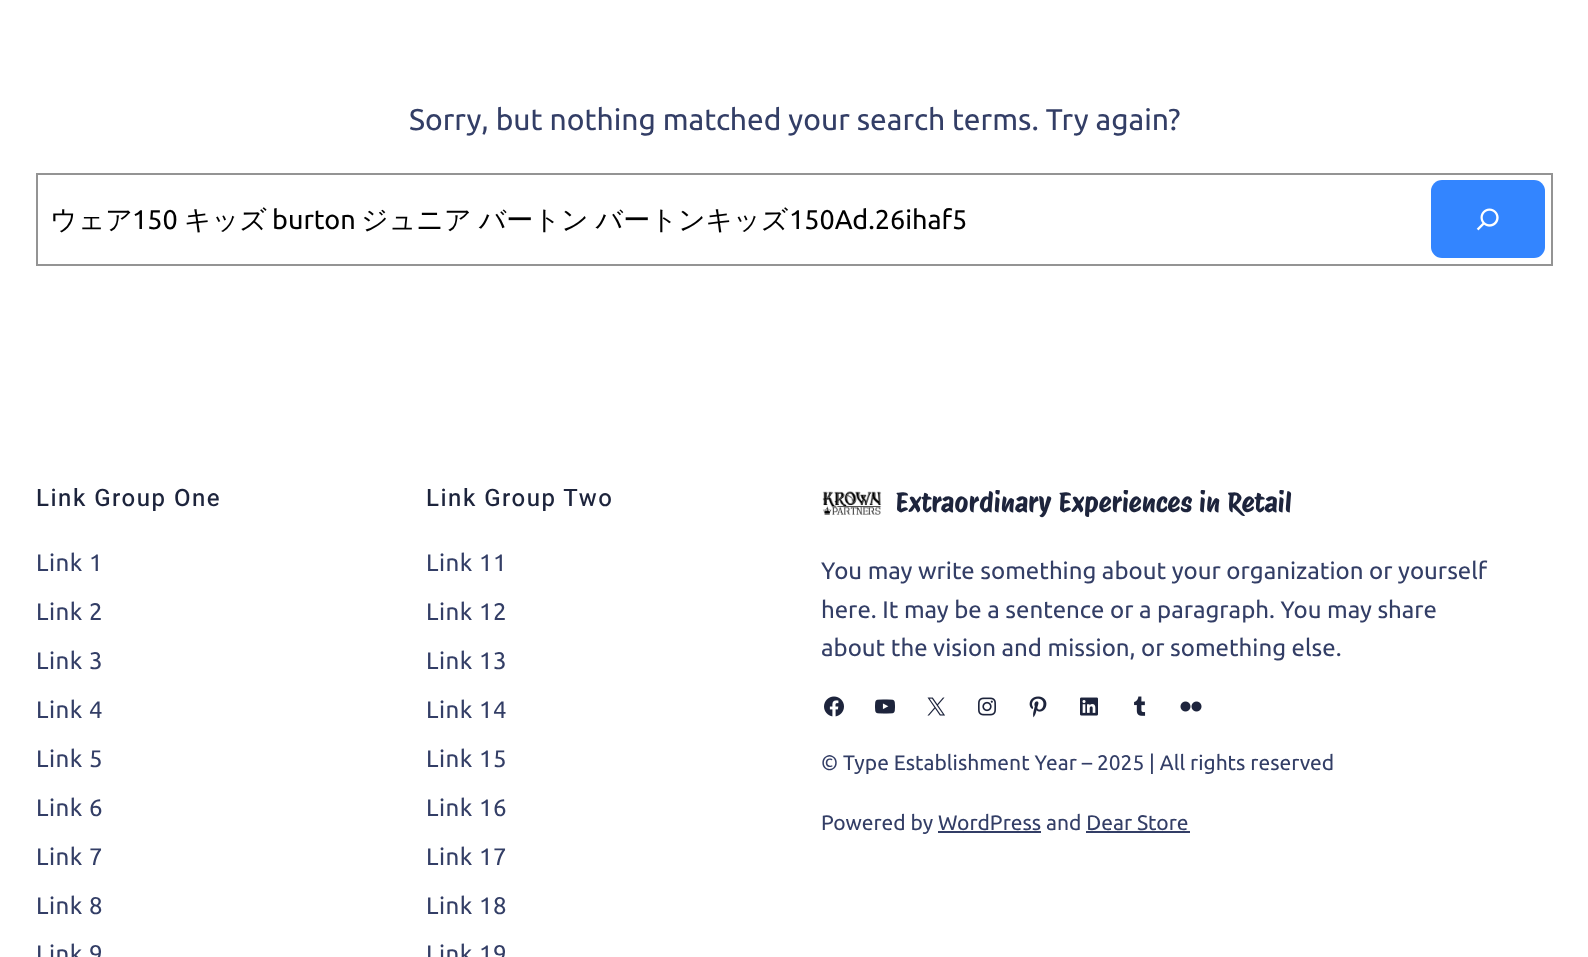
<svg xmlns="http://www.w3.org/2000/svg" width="1588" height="957">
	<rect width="100%" height="100%" fill="#FFFFFF" />
	<text x="409" y="130" font-family="Ubuntu" font-size="30" fill="#333E66">Sorry, but nothing matched your search terms. Try again?</text>
	<rect x="37" y="174" width="1515" height="91" fill="none" stroke="#949494" stroke-width="2" />
	<text x="50" y="229" font-family="WenQuanYi Zen Hei" font-size="27" font-weight="500" fill="#000000">ウェア</text>
	<text x="132" y="229" font-family="Ubuntu" font-size="27" fill="#000000">150</text>
	<text x="184" y="229" font-family="WenQuanYi Zen Hei" font-size="27" font-weight="500" fill="#000000">キッズ</text>
	<text x="272" y="229" font-family="Ubuntu" font-size="27" fill="#000000">burton</text>
	<text x="361" y="229" word-spacing="-1" font-family="WenQuanYi Zen Hei" font-size="27" font-weight="500" fill="#000000">ジュニア バートン バートンキッズ</text>
	<text x="789" y="229" font-family="Ubuntu" font-size="27" fill="#000000">150Ad.26ihaf5</text>
	<rect x="1431" y="180" width="114" height="78" rx="11" fill="#3385FF" />
	<image x="1476" y="208" width="23" height="23" href="assets/img1.png" />
	<text x="36" y="506" font-family="Heebo" font-size="24" font-weight="500" letter-spacing="1.5" fill="#1D243C">Link Group One</text>
	<g font-family="Ubuntu" font-size="24" letter-spacing="0.5" fill="#333E66">
		<text x="36" y="571">Link 1</text>
		<text x="36" y="620">Link 2</text>
		<text x="36" y="669">Link 3</text>
		<text x="36" y="718">Link 4</text>
		<text x="36" y="767">Link 5</text>
		<text x="36" y="816">Link 6</text>
		<text x="36" y="865">Link 7</text>
		<text x="36" y="914">Link 8</text>
		<text x="36" y="962">Link 9</text>
	</g>
	<text x="426" y="506" font-family="Heebo" font-size="24" font-weight="500" letter-spacing="1.5" fill="#1D243C">Link Group Two</text>
	<g font-family="Ubuntu" font-size="24" letter-spacing="0.5" fill="#333E66">
		<text x="426" y="571">Link 11</text>
		<text x="426" y="620">Link 12</text>
		<text x="426" y="669">Link 13</text>
		<text x="426" y="718">Link 14</text>
		<text x="426" y="767">Link 15</text>
		<text x="426" y="816">Link 16</text>
		<text x="426" y="865">Link 17</text>
		<text x="426" y="914">Link 18</text>
		<text x="426" y="962">Link 19</text>
	</g>
	<image x="822" y="491" width="60" height="24" href="assets/img2.png" />
	<text x="895" y="512" font-family="Protest Riot" font-size="27" fill="#1D243C">Extraordinary Experiences in Retail</text>
	<g font-family="Ubuntu" font-size="24" fill="#333E66">
		<text x="821" y="579">You may write something about your organization or yourself</text>
		<text x="821" y="618">here. It may be a sentence or a paragraph. You may share</text>
		<text x="821" y="656">about the vision and mission, or something else.</text>
	</g>
	<image x="824" y="696" width="20" height="21" href="assets/img3.png" />
	<image x="875" y="699" width="20" height="15" href="assets/img4.png" />
	<image x="927" y="697" width="18" height="19" href="assets/img5.png" />
	<image x="978" y="697" width="18" height="19" href="assets/img6.png" />
	<image x="1029" y="696" width="18" height="22" href="assets/img7.png" />
	<image x="1080" y="697" width="18" height="19" href="assets/img8.png" />
	<image x="1134" y="696" width="12" height="20" href="assets/img9.png" />
	<image x="1180" y="701" width="22" height="11" href="assets/img10.png" />
	<g font-family="Ubuntu" font-size="21" fill="#333E66">
		<text x="821" y="770">© Type Establishment Year – 2025 | All rights reserved</text>
		<text x="821" y="830">Powered by WordPress and Dear Store</text>
	</g>
	<rect x="938" y="831" width="103" height="2" fill="#333E66" />
	<rect x="1086" y="831" width="104" height="2" fill="#333E66" />
</svg>
